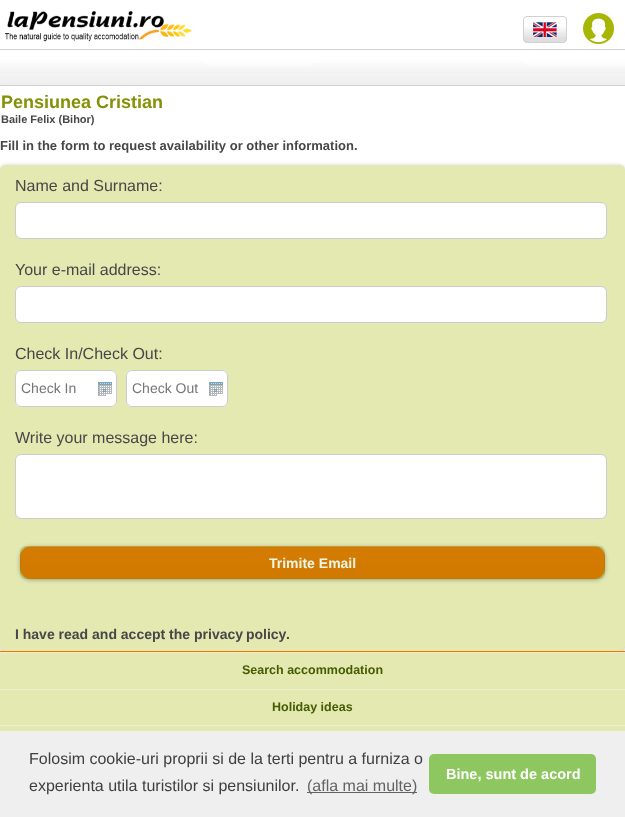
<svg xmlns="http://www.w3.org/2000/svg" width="625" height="817">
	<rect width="100%" height="100%" fill="#FFFFFF" />
	<image x="5" y="11" width="187" height="31" href="assets/img1.png" />
	<image x="523" y="16" width="44" height="27" href="assets/img2.png" />
	<image x="583" y="13" width="31" height="31" href="assets/img3.png" />
	<image x="0" y="49" width="625" height="37" href="assets/img4.png" />
	<text x="1" y="108" font-family="Liberation Sans" font-size="18" font-weight="700" fill="#859106">Pensiunea Cristian</text>
	<text x="1" y="123" font-family="Liberation Sans" font-size="11" font-weight="700" fill="#474747">Baile Felix (Bihor)</text>
	<text x="0" y="150" font-family="Liberation Sans" font-size="13" font-weight="700" fill="#474747">Fill in the form to request availability or other information.</text>
	<rect x="0" y="166" width="625" height="486" rx="6" fill="#000000" fill-opacity="0.3" filter="blur(2px)" />
	<path d="M6 165H619C622.5 165 625 167.5 625 171V249H0V171C0 167.5 2.5 165 6 165Z" fill="#E4E9B2" />
	<text x="15" y="191" font-family="Liberation Sans" font-size="16" fill="#474747">Name and Surname:</text>
	<rect x="15.5" y="202.5" width="591" height="36" rx="5.5" fill="#FFFFFF" stroke="#CCCCCC" />
	<rect x="0" y="249" width="625" height="367" fill="#E4E9B2" />
	<text x="15" y="275" font-family="Liberation Sans" font-size="16" fill="#474747">Your e-mail address:</text>
	<rect x="15.5" y="286.5" width="591" height="36" rx="5.5" fill="#FFFFFF" stroke="#CCCCCC" />
	<text x="15" y="359" font-family="Liberation Sans" font-size="16" fill="#474747">Check In/Check Out:</text>
	<rect x="15" y="370" width="102" height="37" rx="6" fill="#FFFFFF" />
	<image x="98" y="382" width="14" height="14" href="assets/img5.png" />
	<rect x="15.5" y="370.5" width="101" height="36" rx="5.5" fill="none" stroke="#CCCCCC" />
	<text x="21" y="393" font-family="Liberation Sans" font-size="14" fill="#757575">Check In</text>
	<rect x="126" y="370" width="102" height="37" rx="6" fill="#FFFFFF" />
	<image x="209" y="382" width="14" height="14" href="assets/img5.png" />
	<rect x="126.5" y="370.5" width="101" height="36" rx="5.5" fill="none" stroke="#CCCCCC" />
	<text x="132" y="393" font-family="Liberation Sans" font-size="14" fill="#757575">Check Out</text>
	<text x="15" y="443" font-family="Liberation Sans" font-size="16" fill="#474747">Write your message here:</text>
	<rect x="15.5" y="454.5" width="591" height="64" rx="5.5" fill="#FFFFFF" stroke="#CCCCCC" />
	<rect x="20" y="547" width="585" height="33" rx="11" fill="#000000" fill-opacity="0.3" filter="blur(2px)" />
	<rect x="20" y="546" width="585" height="33" rx="11" fill="#F47300" />
	<rect x="26" y="546" width="573" height="1" fill="#FFFFFF" fill-opacity="0.3" />
	<rect x="20" y="546" width="585" height="33" rx="6" fill="#459E00" fill-opacity="0.1" />
	<text x="269" y="568" font-family="Liberation Sans" font-size="14" font-weight="700" fill="#FFFFFF">Trimite Email</text>
	<image x="20" y="546" width="585" height="33" href="assets/img6.png" />
	<rect x="20.5" y="546.5" width="584" height="32" rx="5.5" fill="none" stroke="#327E04" stroke-opacity="0.1" />
	<path d="M0 616H625V645C625 648.5 622.5 651 619 651H6C2.5 651 0 648.5 0 645Z" fill="#E4E9B2" />
	<g font-family="Liberation Sans" font-size="14" font-weight="700" fill="#474747">
		<text x="15" y="639">I have read and accept the</text>
		<text x="194" y="639" word-spacing="-1">privacy policy</text>
		<text x="286" y="639">.</text>
	</g>
	<rect x="0" y="653" width="625" height="78" fill="#E4E9B2" />
	<rect x="0" y="651" width="625" height="1" fill="#F47300" />
	<rect x="0" y="652" width="625" height="1" fill="#ECF0C9" />
	<text x="242" y="674" font-family="Liberation Sans" font-size="12.5" font-weight="700" fill="#455C00">Search accommodation</text>
	<rect x="0" y="689" width="625" height="1" fill="#ECF0C9" />
	<text x="272" y="711" font-family="Liberation Sans" font-size="12.5" font-weight="700" fill="#455C00">Holiday ideas</text>
	<rect x="0" y="725" width="625" height="1" fill="#ECF0C9" />
	<rect x="0" y="731" width="625" height="86" fill="#EFEFEF" />
	<g font-family="Liberation Sans" font-size="16" fill="#404040">
		<text x="29" y="764">Folosim cookie-uri proprii si de la terti pentru a furniza o</text>
		<text x="29" y="791">experienta utila turistilor si pensiunilor.</text>
	</g>
	<rect x="307" y="792" width="110" height="1" fill="#636363" />
	<text x="307" y="791" font-family="Liberation Sans" font-size="16" fill="#636363">(afla mai multe)</text>
	<rect x="429" y="754" width="167" height="40" rx="5" fill="#8EC760" />
	<text x="446" y="779" font-family="Liberation Sans" font-size="14.5" font-weight="700" fill="#FFFFFF">Bine, sunt de acord</text>
</svg>
